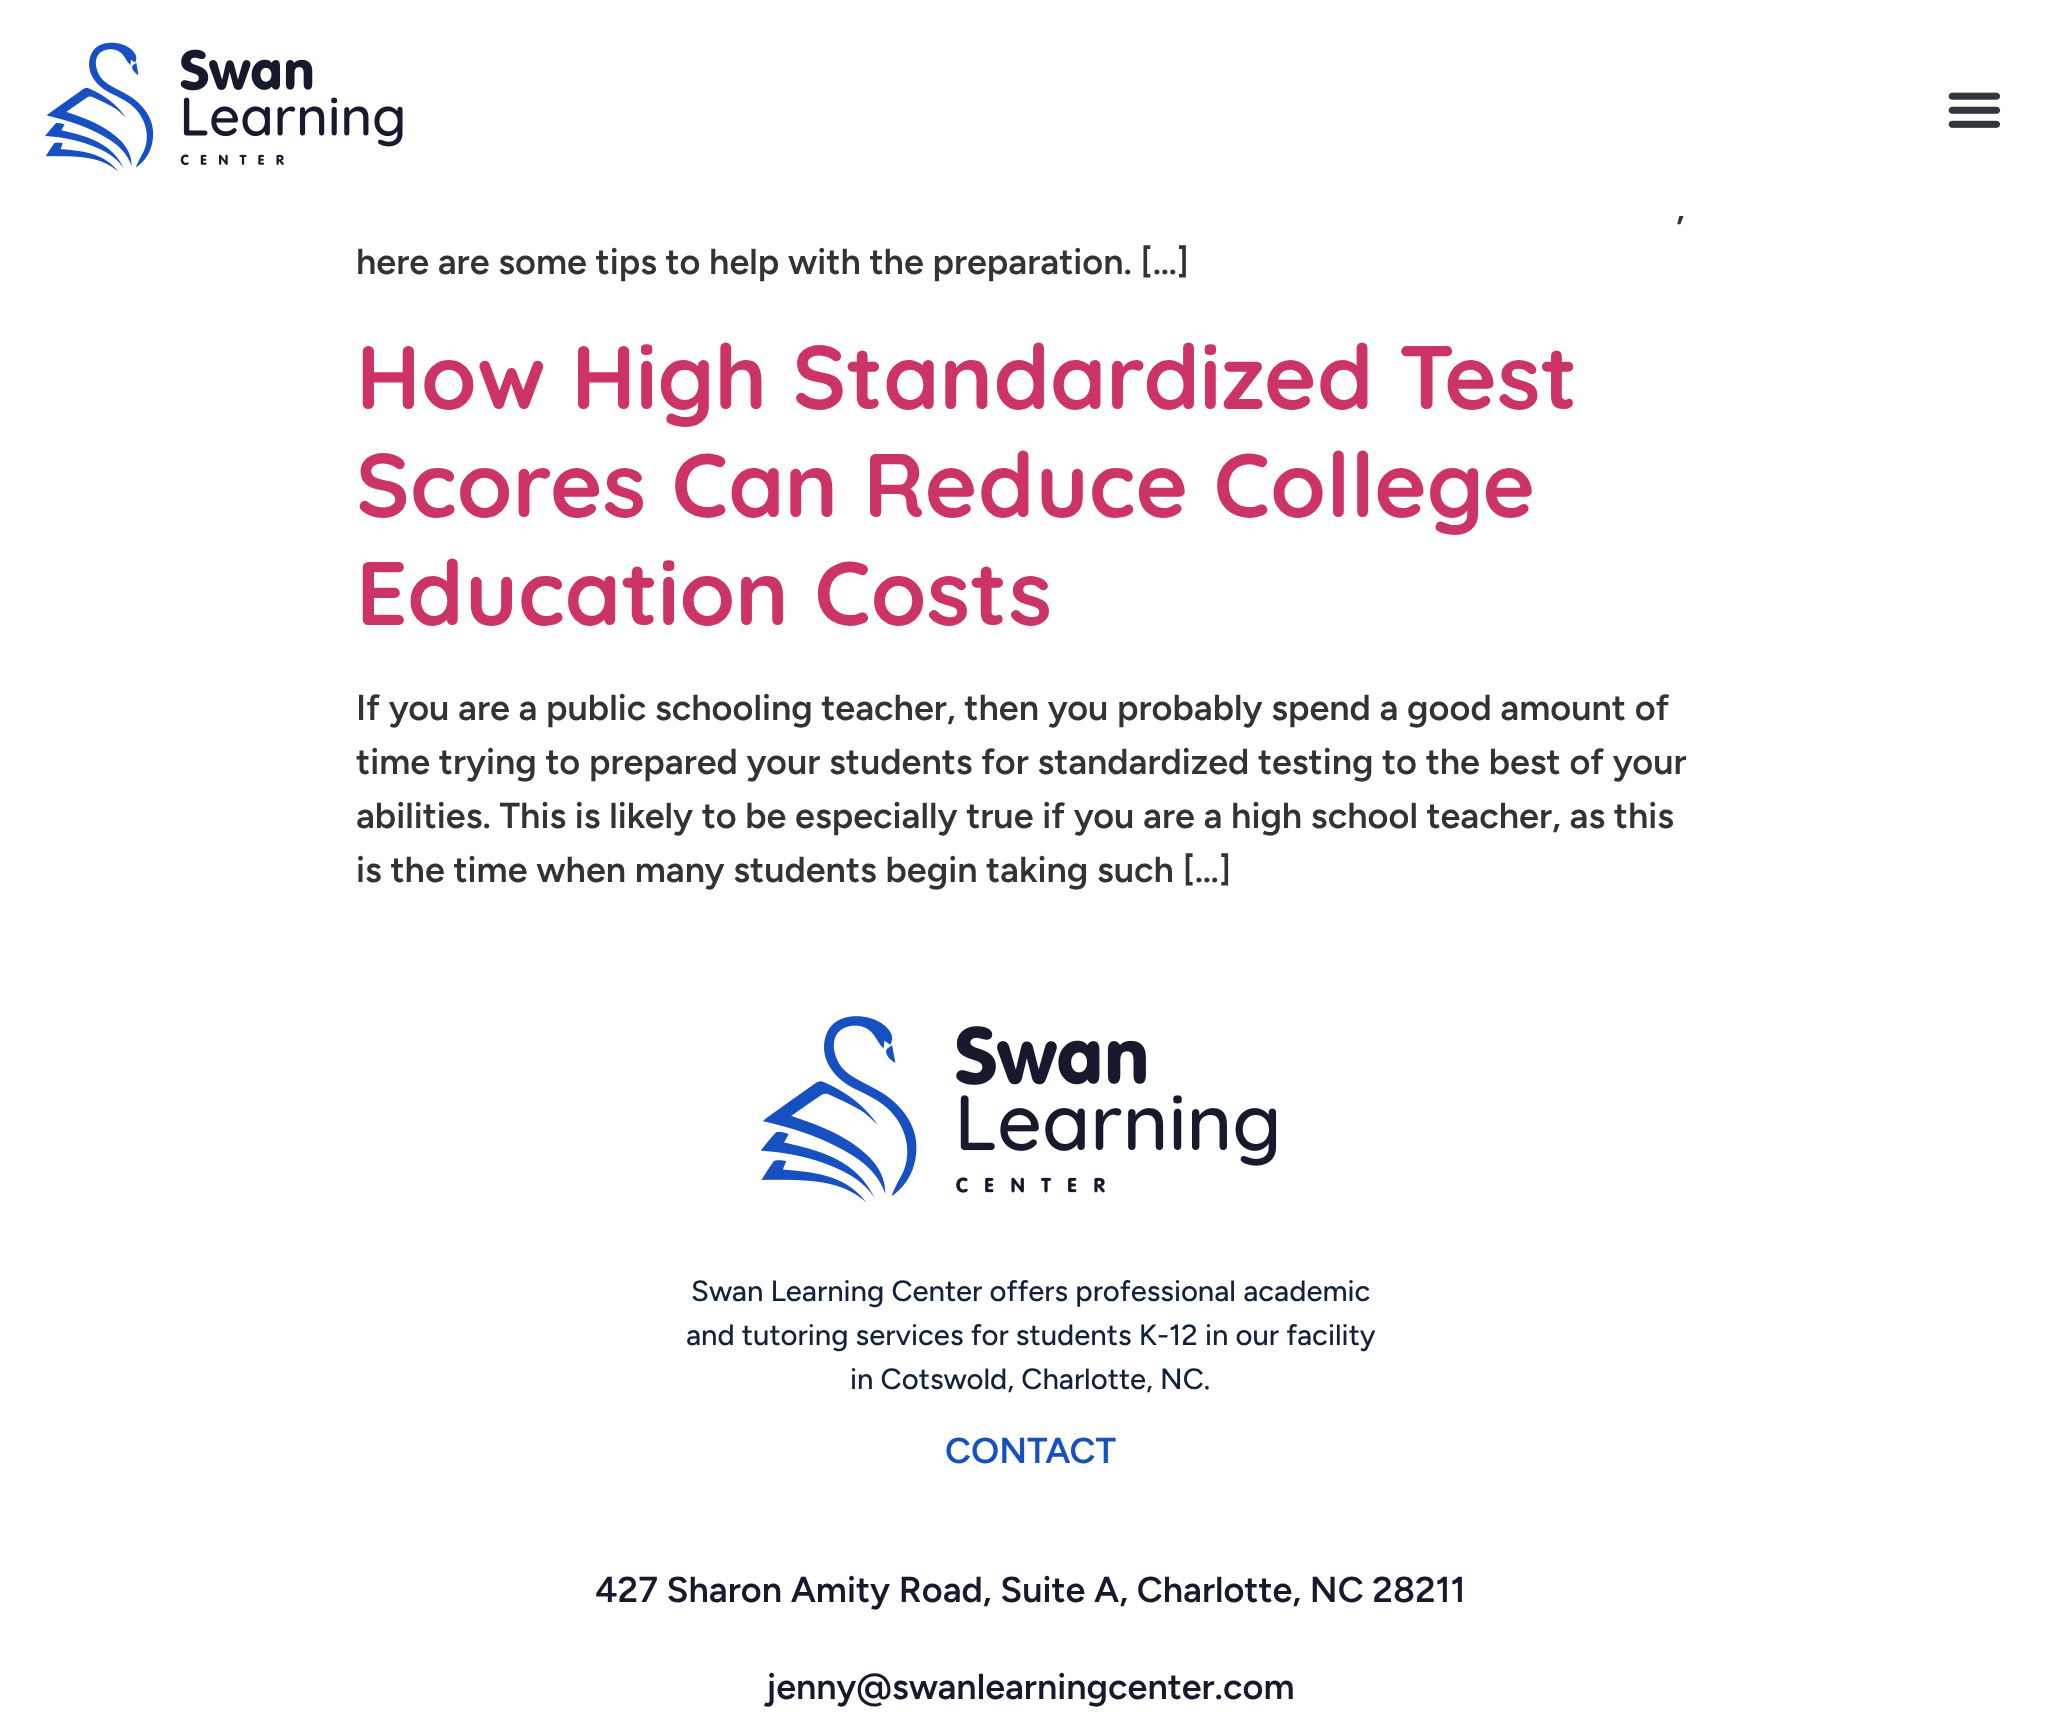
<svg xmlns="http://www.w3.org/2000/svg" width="2059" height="1729">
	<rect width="100%" height="100%" fill="#FFFFFF" />
	<image x="45" y="42" width="358" height="130" href="assets/img1.png" />
	<image x="1948" y="92" width="53" height="36" href="assets/img2.png" />
	<g font-family="Figtree" font-size="36" font-weight="600" fill="#333333">
		<text x="1676" y="220">,</text>
		<text x="356" y="274">here are some tips to help with the preparation. […]</text>
	</g>
	<g font-family="Quicksand" font-size="90" font-weight="700" fill="#CC3366">
		<text x="356" y="409">How High Standardized Test</text>
		<text x="356" y="517">Scores Can Reduce College</text>
		<text x="356" y="625">Education Costs</text>
	</g>
	<g font-family="Figtree" font-size="36" font-weight="600" fill="#333333">
		<text x="356" y="720">If you are a public schooling teacher, then you probably spend a good amount of</text>
		<text x="356" y="774">time trying to prepared your students for standardized testing to the best of your</text>
		<text x="356" y="828">abilities. This is likely to be especially true if you are a high school teacher, as this</text>
		<text x="356" y="882">is the time when many students begin taking such […]</text>
	</g>
	<image x="761" y="1016" width="516" height="187" href="assets/img3.png" />
	<g font-family="Figtree" font-size="29.25" font-weight="500" fill="#12223C">
		<text x="691" y="1301">Swan Learning Center offers professional academic</text>
		<text x="686" y="1345">and tutoring services for students K-12 in our facility</text>
		<text x="850" y="1389">in Cotswold, Charlotte, NC.</text>
	</g>
	<text x="945" y="1463" font-family="Figtree" font-size="36" font-weight="600" fill="#1750C1">CONTACT</text>
	<g font-family="Figtree" font-size="36" font-weight="600" fill="#171A2D">
		<text x="595" y="1602">427 Sharon Amity Road, Suite A, Charlotte, NC 28211</text>
		<text x="766" y="1699">jenny@swanlearningcenter.com</text>
	</g>
</svg>
